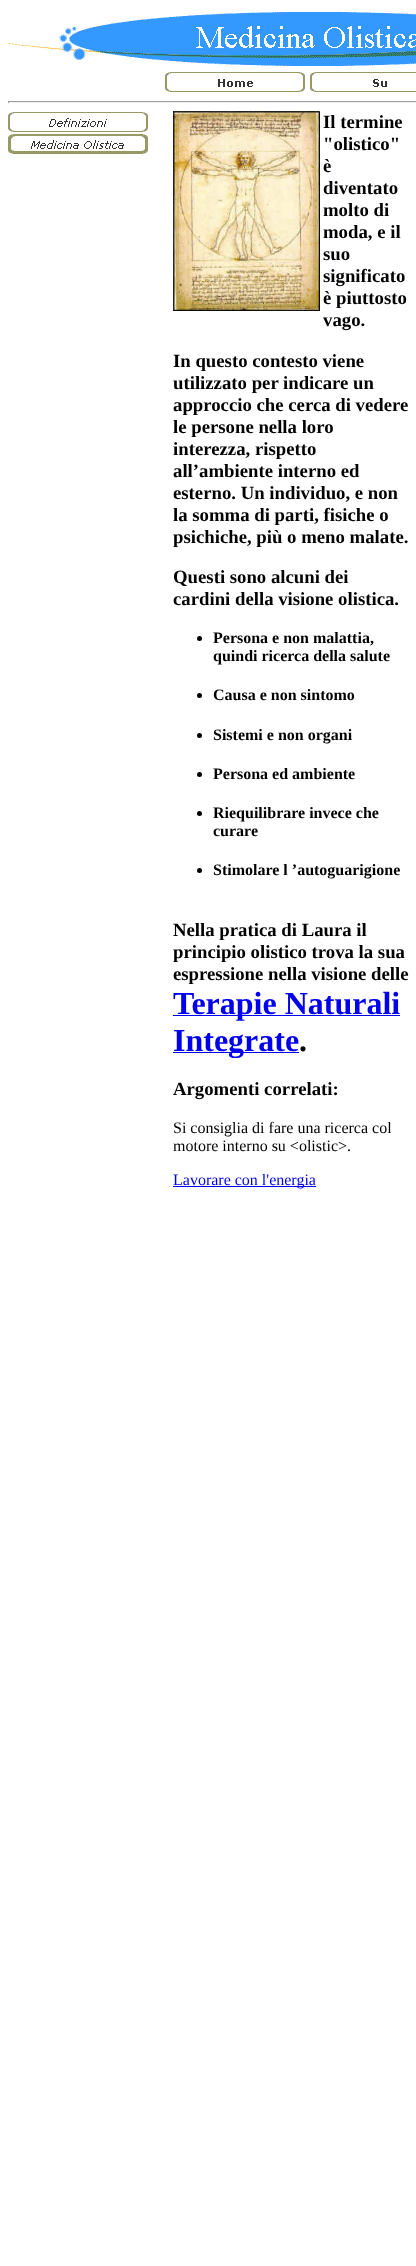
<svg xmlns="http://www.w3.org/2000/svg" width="416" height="2266">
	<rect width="100%" height="100%" fill="#FFFFFF" />
	<image x="8" y="12" width="408" height="54" href="assets/img1.png" />
	<image x="165" y="72" width="140" height="20" href="assets/img2.png" />
	<image x="310" y="72" width="106" height="20" href="assets/img3.png" />
	<rect x="8" y="101" width="408" height="1" fill="#9F9F9F" />
	<rect x="8" y="102" width="408" height="1" fill="#EEEEEE" />
	<rect x="8" y="101" width="1" height="2" fill="#9F9F9F" />
	<image x="8" y="112" width="140" height="20" href="assets/img4.png" />
	<image x="8" y="134" width="140" height="20" href="assets/img5.png" />
	<image x="173" y="111" width="147" height="200" href="assets/img6.png" />
	<g font-family="Liberation Serif" font-size="18.75" font-weight="700" fill="#000000">
		<text x="323" y="128">Il termine</text>
		<text x="323" y="150">"olistico"</text>
		<text x="323" y="172">è</text>
		<text x="323" y="194">diventato</text>
		<text x="323" y="216">molto di</text>
		<text x="323" y="238">moda, e il</text>
		<text x="323" y="260">suo</text>
		<text x="323" y="282">significato</text>
		<text x="323" y="304">è piuttosto</text>
		<text x="323" y="326">vago.</text>
		<text x="173" y="367">In questo contesto viene</text>
		<text x="173" y="389">utilizzato per indicare un</text>
		<text x="173" y="411">approccio che cerca di vedere</text>
		<text x="173" y="433">le persone nella loro</text>
		<text x="173" y="455">interezza, rispetto</text>
		<text x="173" y="477">all’ambiente interno ed</text>
		<text x="173" y="499">esterno. Un individuo, e non</text>
		<text x="173" y="521">la somma di parti, fisiche o</text>
		<text x="173" y="543">psichiche, più o meno malate.</text>
		<text x="173" y="583">Questi sono alcuni dei</text>
		<text x="173" y="605">cardini della visione olistica.</text>
	</g>
	<circle cx="199.5" cy="638.5" r="2.5" fill="#000000" />
	<g font-family="Liberation Serif" font-size="16" font-weight="700" fill="#000000">
		<text x="213" y="643">Persona e non malattia,</text>
		<text x="213" y="661">quindi ricerca della salute</text>
	</g>
	<circle cx="199.5" cy="695.5" r="2.5" fill="#000000" />
	<text x="213" y="700" font-family="Liberation Serif" font-size="16" font-weight="700" fill="#000000">Causa e non sintomo</text>
	<circle cx="199.5" cy="735.5" r="2.5" fill="#000000" />
	<text x="213" y="740" font-family="Liberation Serif" font-size="16" font-weight="700" fill="#000000">Sistemi e non organi</text>
	<circle cx="199.5" cy="774.5" r="2.5" fill="#000000" />
	<text x="213" y="779" font-family="Liberation Serif" font-size="16" font-weight="700" fill="#000000">Persona ed ambiente</text>
	<circle cx="199.5" cy="813.5" r="2.5" fill="#000000" />
	<g font-family="Liberation Serif" font-size="16" font-weight="700" fill="#000000">
		<text x="213" y="818">Riequilibrare invece che</text>
		<text x="213" y="836">curare</text>
	</g>
	<circle cx="199.5" cy="870.5" r="2.5" fill="#000000" />
	<text x="213" y="875" font-family="Liberation Serif" font-size="16" font-weight="700" fill="#000000">Stimolare l ’autoguarigione</text>
	<g font-family="Liberation Serif" font-size="18.75" font-weight="700" fill="#000000">
		<text x="173" y="936">Nella pratica di Laura il</text>
		<text x="173" y="958">principio olistico trova la sua</text>
		<text x="173" y="980">espressione nella visione delle</text>
	</g>
	<rect x="173" y="1015" width="227" height="1" fill="#0000EE" />
	<text x="173" y="1014" font-family="Liberation Serif" font-size="32" font-weight="700" fill="#0000EE">Terapie Naturali</text>
	<rect x="173" y="1052" width="126" height="1" fill="#0000EE" />
	<text x="173" y="1051" font-family="Liberation Serif" font-size="32" font-weight="700" fill="#0000EE">Integrate</text>
	<text x="299" y="1051" font-family="Liberation Serif" font-size="32" font-weight="700" fill="#000000">.</text>
	<text x="173" y="1095" font-family="Liberation Serif" font-size="18.75" font-weight="700" fill="#000000">Argomenti correlati:</text>
	<g font-family="Liberation Serif" font-size="16" fill="#000000">
		<text x="173" y="1133">Si consiglia di fare una ricerca col</text>
		<text x="173" y="1151">motore interno su &lt;olistic&gt;.</text>
	</g>
	<rect x="173" y="1186" width="143" height="1" fill="#0000EE" />
	<text x="173" y="1185" font-family="Liberation Serif" font-size="16" fill="#0000EE">Lavorare con l'energia</text>
</svg>
